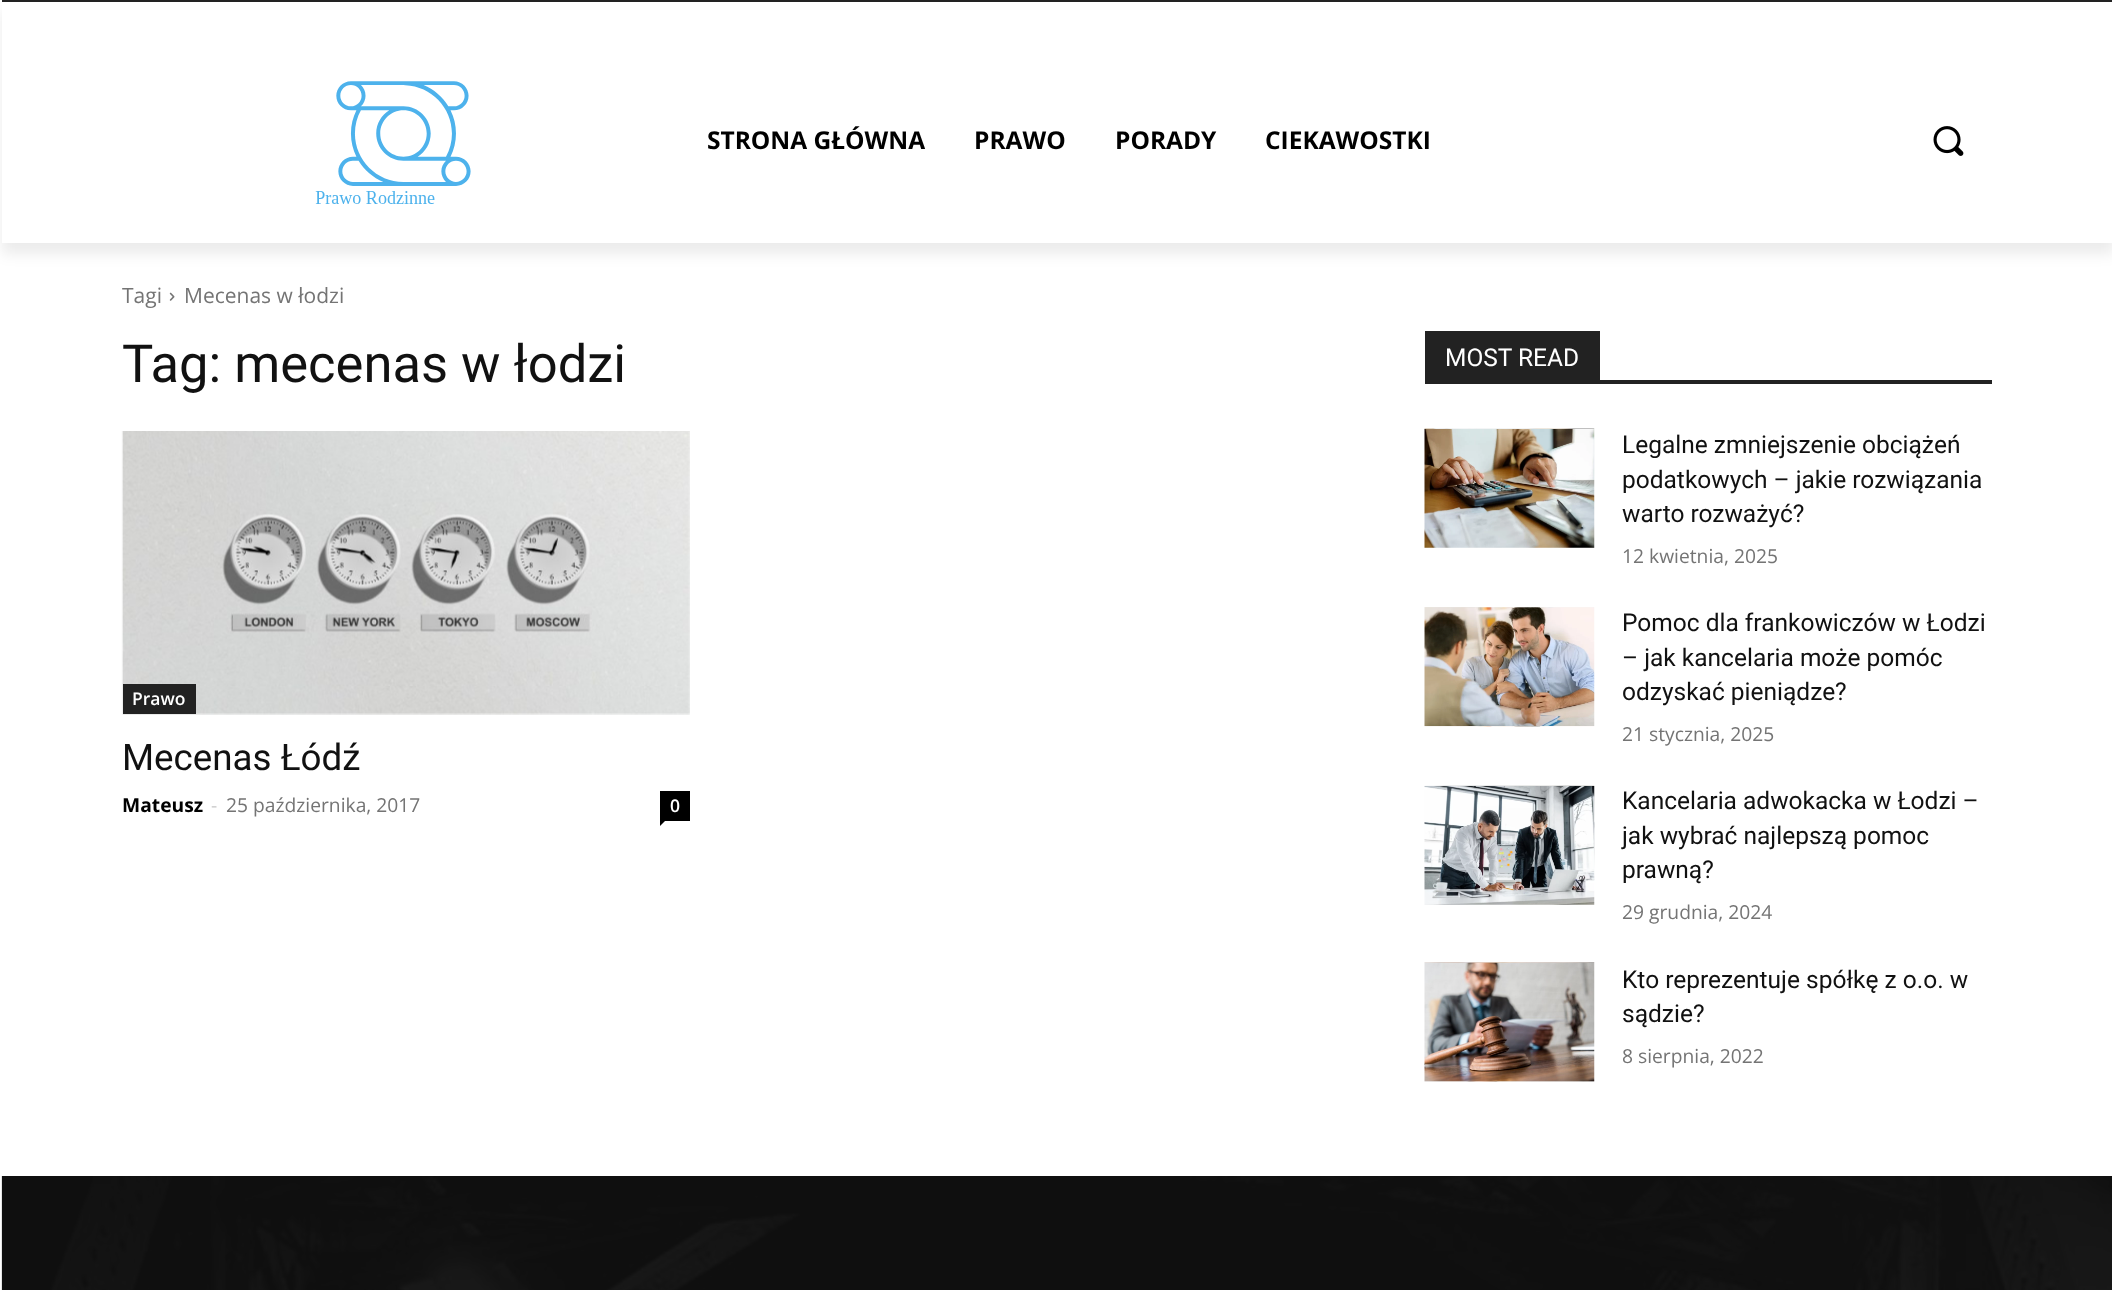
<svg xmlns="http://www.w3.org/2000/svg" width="2112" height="1290">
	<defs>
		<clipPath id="clip1"><path d="M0 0H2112V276H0ZM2 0H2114V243H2Z" clip-rule="evenodd" /></clipPath>
	</defs>
	<rect width="100%" height="100%" fill="#FFFFFF" />
	<rect x="2" y="0" width="2110" height="2" fill="#222222" />
	<image x="315" y="81" width="156" height="123" href="assets/img1.png" />
	<g clip-path="url(#clip1)">
		<rect x="2" y="11" width="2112" height="243" fill="#000000" fill-opacity="0.08" filter="blur(7px)" />
	</g>
	<g font-family="Open Sans" font-size="24.5" font-weight="700" fill="#000000">
		<text x="707" y="149">STRONA GŁÓWNA</text>
		<text x="974" y="149">PRAWO</text>
		<text x="1115" y="149">PORADY</text>
		<text x="1265" y="149">CIEKAWOSTKI</text>
	</g>
	<image x="1933" y="126" width="31" height="30" href="assets/img2.png" />
	<text x="122" y="303" font-family="Open Sans" font-size="21" fill="#747474">Tagi</text>
	<image x="169" y="292" width="6" height="9" href="assets/img3.png" />
	<text x="184" y="303" font-family="Open Sans" font-size="21" fill="#747474">Mecenas w łodzi</text>
	<text x="122" y="382" font-family="Roboto" font-size="52.5" fill="#111111">Tag: mecenas w łodzi</text>
	<image x="121" y="431" width="569" height="284" href="assets/img4.png" />
	<rect x="123" y="684" width="73" height="30" fill="#222222" />
	<text x="132" y="705" font-family="Open Sans" font-size="17.5" font-weight="600" fill="#FFFFFF">Prawo</text>
	<text x="122" y="770" font-family="Roboto" font-size="36.75" fill="#111111">Mecenas Łódź</text>
	<text x="122" y="812" font-family="Open Sans" font-size="19.25" font-weight="700" fill="#000000">Mateusz</text>
	<text x="211" y="812" font-family="Open Sans" font-size="19.25" fill="#CCCCCC">-</text>
	<text x="226" y="812" font-family="Open Sans" font-size="19.25" fill="#747474">25 października, 2017</text>
	<rect x="660" y="791" width="30" height="30" fill="#000000" />
	<text x="670" y="812" font-family="Open Sans" font-size="17.5" font-weight="600" fill="#FFFFFF">0</text>
	<path d="M660 821H665L660 826Z" fill="#000000" />
	<rect x="1425" y="380" width="567" height="4" fill="#222222" />
	<rect x="1425" y="331" width="175" height="49" fill="#222222" />
	<text x="1445" y="366" font-family="Roboto" font-size="24.5" fill="#FFFFFF">MOST READ</text>
	<image x="1424" y="428" width="171" height="120" href="assets/img5.png" />
	<g font-family="Roboto" font-size="24.5" fill="#111111">
		<text x="1622" y="453">Legalne zmniejszenie obciążeń</text>
		<text x="1622" y="488">podatkowych – jakie rozwiązania</text>
		<text x="1622" y="522">warto rozważyć?</text>
	</g>
	<text x="1622" y="563" font-family="Open Sans" font-size="19.25" fill="#747474">12 kwietnia, 2025</text>
	<image x="1424" y="607" width="171" height="120" href="assets/img6.png" />
	<g font-family="Roboto" font-size="24.5" fill="#111111">
		<text x="1622" y="631">Pomoc dla frankowiczów w Łodzi</text>
		<text x="1622" y="666">– jak kancelaria może pomóc</text>
		<text x="1622" y="700">odzyskać pieniądze?</text>
	</g>
	<text x="1622" y="741" font-family="Open Sans" font-size="19.25" fill="#747474">21 stycznia, 2025</text>
	<image x="1424" y="785" width="171" height="120" href="assets/img7.png" />
	<g font-family="Roboto" font-size="24.5" fill="#111111">
		<text x="1622" y="809">Kancelaria adwokacka w Łodzi –</text>
		<text x="1622" y="844">jak wybrać najlepszą pomoc</text>
		<text x="1622" y="878">prawną?</text>
	</g>
	<text x="1622" y="919" font-family="Open Sans" font-size="19.25" fill="#747474">29 grudnia, 2024</text>
	<image x="1424" y="962" width="171" height="120" href="assets/img8.png" />
	<g font-family="Roboto" font-size="24.5" fill="#111111">
		<text x="1622" y="988">Kto reprezentuje spółkę z o.o. w</text>
		<text x="1622" y="1022">sądzie?</text>
	</g>
	<text x="1622" y="1063" font-family="Open Sans" font-size="19.25" fill="#747474">8 sierpnia, 2022</text>
	<rect x="2" y="1176" width="2110" height="114" fill="#111111" />
	<image x="1" y="1176" width="2111" height="114" href="assets/img9.png" />
</svg>
